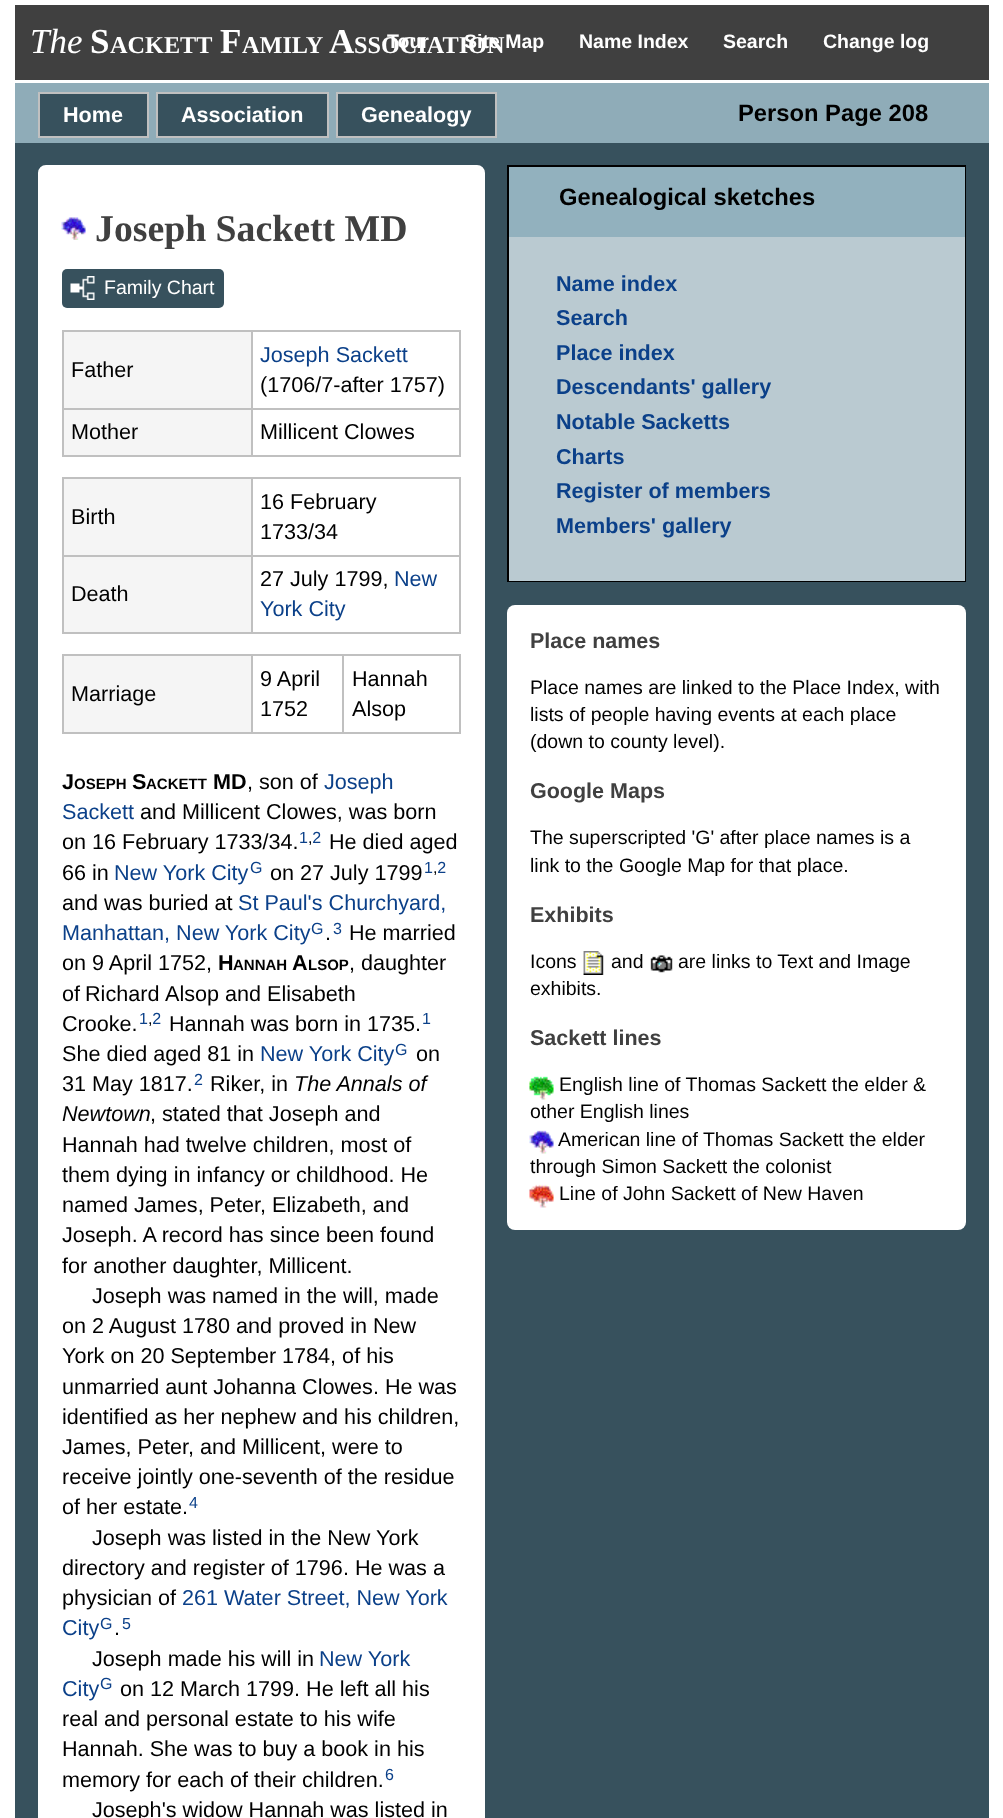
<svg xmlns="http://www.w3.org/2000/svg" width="1003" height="1818">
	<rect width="100%" height="100%" fill="#37515D" />
	<rect x="7.5" y="7.5" width="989" height="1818" fill="none" stroke="#FFFFFF" stroke-width="15" />
	<rect x="15" y="5" width="974" height="75" fill="#404040" />
	<text x="30" y="53" font-family="Liberation Serif" font-size="35" font-style="italic" fill="#FFFFFF">The</text>
	<text x="90" y="53" font-family="Liberation Serif" font-size="35" font-weight="700" fill="#FFFFFF">S</text>
	<text x="110" y="53" font-family="Liberation Serif" font-size="24.25" font-weight="700" fill="#FFFFFF">ACKETT</text>
	<text x="220" y="53" font-family="Liberation Serif" font-size="35" font-weight="700" fill="#FFFFFF">F</text>
	<text x="242" y="53" font-family="Liberation Serif" font-size="24.25" font-weight="700" fill="#FFFFFF">AMILY</text>
	<text x="329" y="53" font-family="Liberation Serif" font-size="35" font-weight="700" fill="#FFFFFF">A</text>
	<g font-family="Liberation Sans" font-size="19.5" font-weight="700" fill="#FFFFFF">
		<text x="387" y="48">Tour</text>
		<text x="464" y="48">Site Map</text>
	</g>
	<text x="354" y="53" font-family="Liberation Serif" font-size="24.25" font-weight="700" fill="#FFFFFF">SSOCIATION</text>
	<rect x="15" y="83" width="974" height="60" fill="#8FACB8" />
	<text x="738" y="121" font-family="Liberation Sans" font-size="23.75" font-weight="700" fill="#000000">Person Page 208</text>
	<g font-family="Liberation Sans" font-size="19.5" font-weight="700" fill="#FFFFFF">
		<text x="579" y="48">Name Index</text>
		<text x="723" y="48">Search</text>
		<text x="823" y="48">Change log</text>
	</g>
	<rect x="15" y="80" width="974" height="3" fill="#FFFFFF" />
	<rect x="39" y="93" width="109" height="44" fill="#37515D" stroke="#C0C0C0" stroke-width="2" />
	<text x="63" y="122" font-family="Liberation Sans" font-size="21.6" font-weight="700" fill="#FFFFFF">Home</text>
	<rect x="157" y="93" width="171" height="44" fill="#37515D" stroke="#C0C0C0" stroke-width="2" />
	<text x="181" y="122" font-family="Liberation Sans" font-size="21.6" font-weight="700" fill="#FFFFFF">Association</text>
	<rect x="337" y="93" width="159" height="44" fill="#37515D" stroke="#C0C0C0" stroke-width="2" />
	<text x="361" y="122" font-family="Liberation Sans" font-size="21.6" font-weight="700" fill="#FFFFFF">Genealogy</text>
	<rect x="39" y="166" width="445" height="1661" rx="7" fill="#FFFFFF" stroke="#FFFFFF" stroke-width="2" />
	<image x="61" y="217" width="25" height="23" href="assets/img1.png" />
	<text x="95" y="241" font-family="Liberation Serif" font-size="37.75" font-weight="700" fill="#404040">Joseph Sackett MD</text>
	<rect x="62" y="269" width="162" height="39" rx="5" fill="#37515D" />
	<image x="70" y="276" width="25" height="24" href="assets/img2.png" />
	<text x="104" y="294" font-family="Liberation Sans" font-size="19.5" fill="#FFFFFF">Family Chart</text>
	<rect x="64" y="332" width="187" height="76" fill="#F5F5F5" />
	<rect x="251" y="330" width="210" height="2" fill="#C0C0C0" />
	<rect x="251" y="408" width="210" height="2" fill="#C0C0C0" />
	<rect x="459" y="408" width="2" height="48" fill="#C0C0C0" />
	<rect x="251" y="455" width="210" height="2" fill="#C0C0C0" />
	<rect x="251" y="408" width="2" height="48" fill="#C0C0C0" />
	<rect x="62" y="408" width="190" height="2" fill="#C0C0C0" />
	<rect x="251" y="330" width="2" height="80" fill="#C0C0C0" />
	<rect x="62" y="330" width="190" height="2" fill="#C0C0C0" />
	<rect x="62" y="455" width="190" height="2" fill="#C0C0C0" />
	<rect x="62" y="408" width="2" height="48" fill="#C0C0C0" />
	<rect x="62" y="330" width="2" height="80" fill="#C0C0C0" />
	<text x="71" y="377" font-family="Liberation Sans" font-size="21.6" fill="#000000">Father</text>
	<rect x="459" y="330" width="2" height="80" fill="#C0C0C0" />
	<text x="260" y="362" font-family="Liberation Sans" font-size="21.6" fill="#0B4089">Joseph Sackett</text>
	<text x="260" y="392" font-family="Liberation Sans" font-size="21.6" fill="#000000">(1706/7-after 1757)</text>
	<rect x="64" y="410" width="187" height="45" fill="#F5F5F5" />
	<g font-family="Liberation Sans" font-size="21.6" fill="#000000">
		<text x="71" y="439">Mother</text>
		<text x="260" y="439">Millicent Clowes</text>
	</g>
	<rect x="64" y="479" width="187" height="76" fill="#F5F5F5" />
	<rect x="251" y="477" width="210" height="2" fill="#C0C0C0" />
	<rect x="251" y="555" width="210" height="2" fill="#C0C0C0" />
	<rect x="459" y="555" width="2" height="78" fill="#C0C0C0" />
	<rect x="251" y="632" width="210" height="2" fill="#C0C0C0" />
	<rect x="251" y="555" width="2" height="78" fill="#C0C0C0" />
	<rect x="62" y="555" width="190" height="2" fill="#C0C0C0" />
	<rect x="251" y="477" width="2" height="80" fill="#C0C0C0" />
	<rect x="62" y="477" width="190" height="2" fill="#C0C0C0" />
	<rect x="62" y="632" width="190" height="2" fill="#C0C0C0" />
	<rect x="62" y="555" width="2" height="78" fill="#C0C0C0" />
	<rect x="62" y="477" width="2" height="80" fill="#C0C0C0" />
	<text x="71" y="524" font-family="Liberation Sans" font-size="21.6" fill="#000000">Birth</text>
	<rect x="459" y="477" width="2" height="80" fill="#C0C0C0" />
	<g font-family="Liberation Sans" font-size="21.6" fill="#000000">
		<text x="260" y="509">16 February</text>
		<text x="260" y="539">1733/34</text>
	</g>
	<rect x="64" y="557" width="187" height="75" fill="#F5F5F5" />
	<g font-family="Liberation Sans" font-size="21.6" fill="#000000">
		<text x="71" y="601">Death</text>
		<text x="260" y="586">27 July 1799,</text>
	</g>
	<g font-family="Liberation Sans" font-size="21.6" fill="#0B4089">
		<text x="394" y="586">New</text>
		<text x="260" y="616">York City</text>
	</g>
	<rect x="64" y="656" width="187" height="76" fill="#F5F5F5" />
	<rect x="342" y="654" width="119" height="2" fill="#C0C0C0" />
	<rect x="459" y="654" width="2" height="80" fill="#C0C0C0" />
	<rect x="342" y="732" width="119" height="2" fill="#C0C0C0" />
	<rect x="342" y="654" width="2" height="80" fill="#C0C0C0" />
	<rect x="251" y="654" width="93" height="2" fill="#C0C0C0" />
	<rect x="251" y="732" width="93" height="2" fill="#C0C0C0" />
	<rect x="251" y="654" width="2" height="80" fill="#C0C0C0" />
	<rect x="62" y="654" width="190" height="2" fill="#C0C0C0" />
	<rect x="62" y="732" width="190" height="2" fill="#C0C0C0" />
	<rect x="62" y="654" width="2" height="80" fill="#C0C0C0" />
	<g font-family="Liberation Sans" font-size="21.6" fill="#000000">
		<text x="71" y="701">Marriage</text>
		<text x="260" y="686">9 April</text>
		<text x="260" y="716">1752</text>
		<text x="352" y="686">Hannah</text>
		<text x="352" y="716">Alsop</text>
	</g>
	<text x="62" y="789" font-family="Liberation Sans" font-size="21.6" font-weight="700" fill="#000000">J</text>
	<text x="74" y="789" font-family="Liberation Sans" font-size="15" font-weight="700" fill="#000000">OSEPH</text>
	<text x="132" y="789" font-family="Liberation Sans" font-size="21.6" font-weight="700" fill="#000000">S</text>
	<text x="146" y="789" font-family="Liberation Sans" font-size="15" font-weight="700" fill="#000000">ACKETT</text>
	<text x="213" y="789" font-family="Liberation Sans" font-size="21.6" font-weight="700" fill="#000000">MD</text>
	<text x="247" y="789" font-family="Liberation Sans" font-size="21.6" fill="#000000">, son of</text>
	<g font-family="Liberation Sans" font-size="21.6" fill="#0B4089">
		<text x="324" y="789">Joseph</text>
		<text x="62" y="819">Sackett</text>
	</g>
	<g font-family="Liberation Sans" font-size="21.6" fill="#000000">
		<text x="140" y="819">and Millicent Clowes, was born</text>
		<text x="62" y="849">on 16 February 1733/34.</text>
	</g>
	<text x="299" y="843" font-family="Liberation Sans" font-size="16" fill="#0B4089">1 2</text>
	<text x="329" y="849" font-family="Liberation Sans" font-size="21.6" fill="#000000">He died aged</text>
	<text x="308" y="843" font-family="Liberation Sans" font-size="16" fill="#000000">,</text>
	<text x="62" y="880" font-family="Liberation Sans" font-size="21.6" fill="#000000">66 in</text>
	<text x="114" y="880" font-family="Liberation Sans" font-size="21.6" fill="#0B4089">New York City</text>
	<text x="250" y="873" font-family="Liberation Sans" font-size="16" fill="#0B4089">G</text>
	<text x="270" y="880" font-family="Liberation Sans" font-size="21.6" fill="#000000">on 27 July 1799</text>
	<text x="424" y="873" font-family="Liberation Sans" font-size="16" fill="#0B4089">1 2</text>
	<text x="433" y="873" font-family="Liberation Sans" font-size="16" fill="#000000">,</text>
	<text x="62" y="910" font-family="Liberation Sans" font-size="21.6" fill="#000000">and was buried at</text>
	<g font-family="Liberation Sans" font-size="21.6" fill="#0B4089">
		<text x="238" y="910">St Paul's Churchyard,</text>
		<text x="62" y="940">Manhattan, New York City</text>
	</g>
	<text x="311" y="934" font-family="Liberation Sans" font-size="16" fill="#0B4089">G</text>
	<text x="325" y="940" font-family="Liberation Sans" font-size="21.6" fill="#000000">.</text>
	<text x="333" y="934" font-family="Liberation Sans" font-size="16" fill="#0B4089">3</text>
	<g font-family="Liberation Sans" font-size="21.6" fill="#000000">
		<text x="349" y="940">He married</text>
		<text x="62" y="970">on 9 April 1752,</text>
	</g>
	<text x="218" y="970" font-family="Liberation Sans" font-size="21.6" font-weight="700" fill="#000000">H</text>
	<text x="233" y="970" font-family="Liberation Sans" font-size="15" font-weight="700" fill="#000000">ANNAH</text>
	<text x="292" y="970" font-family="Liberation Sans" font-size="21.6" font-weight="700" fill="#000000">A</text>
	<text x="308" y="970" font-family="Liberation Sans" font-size="15" font-weight="700" fill="#000000">LSOP</text>
	<g font-family="Liberation Sans" font-size="21.6" fill="#000000">
		<text x="349" y="970">, daughter</text>
		<text x="62" y="1001" word-spacing="-1">of Richard</text>
		<text x="165" y="1001">Alsop and Elisabeth</text>
		<text x="62" y="1031">Crooke.</text>
	</g>
	<text x="139" y="1024" font-family="Liberation Sans" font-size="16" fill="#0B4089">1 2</text>
	<text x="169" y="1031" font-family="Liberation Sans" font-size="21.6" fill="#000000">Hannah was born in 1735.</text>
	<text x="422" y="1024" font-family="Liberation Sans" font-size="16" fill="#0B4089">1</text>
	<text x="148" y="1024" font-family="Liberation Sans" font-size="16" fill="#000000">,</text>
	<text x="62" y="1061" font-family="Liberation Sans" font-size="21.6" fill="#000000">She died aged 81 in</text>
	<text x="260" y="1061" font-family="Liberation Sans" font-size="21.6" fill="#0B4089">New York City</text>
	<text x="395" y="1055" font-family="Liberation Sans" font-size="16" fill="#0B4089">G</text>
	<g font-family="Liberation Sans" font-size="21.6" fill="#000000">
		<text x="416" y="1061">on</text>
		<text x="62" y="1091">31 May 1817.</text>
	</g>
	<text x="194" y="1085" font-family="Liberation Sans" font-size="16" fill="#0B4089">2</text>
	<text x="210" y="1091" font-family="Liberation Sans" font-size="21.6" fill="#000000">Riker, in</text>
	<g font-family="Liberation Sans" font-size="21.6" font-style="italic" fill="#000000">
		<text x="294" y="1091">The Annals of</text>
		<text x="62" y="1121">Newtown</text>
	</g>
	<g font-family="Liberation Sans" font-size="21.6" fill="#000000">
		<text x="150" y="1121">, stated that Joseph and</text>
		<text x="62" y="1152">Hannah had twelve children, most of</text>
		<text x="62" y="1182">them dying in infancy or childhood. He</text>
		<text x="62" y="1212">named James, Peter, Elizabeth, and</text>
		<text x="62" y="1242">Joseph. A record has since been found</text>
		<text x="62" y="1273">for another daughter, Millicent.</text>
		<text x="92" y="1303">Joseph was named in the will, made</text>
		<text x="62" y="1333">on 2 August 1780 and proved in New</text>
		<text x="62" y="1363">York on 20 September 1784, of his</text>
		<text x="62" y="1394">unmarried aunt Johanna Clowes. He was</text>
		<text x="62" y="1424">identified as her nephew and his children,</text>
		<text x="62" y="1454">James, Peter, and Millicent, were to</text>
		<text x="62" y="1484">receive jointly one-seventh of the residue</text>
		<text x="62" y="1514">of her estate.</text>
	</g>
	<text x="189" y="1508" font-family="Liberation Sans" font-size="16" fill="#0B4089">4</text>
	<g font-family="Liberation Sans" font-size="21.6" fill="#000000">
		<text x="92" y="1545">Joseph was listed in the New York</text>
		<text x="62" y="1575">directory and register of 1796. He was a</text>
		<text x="62" y="1605">physician of</text>
	</g>
	<g font-family="Liberation Sans" font-size="21.6" fill="#0B4089">
		<text x="182" y="1605">261 Water Street, New York</text>
		<text x="62" y="1635">City</text>
	</g>
	<text x="100" y="1629" font-family="Liberation Sans" font-size="16" fill="#0B4089">G</text>
	<text x="114" y="1635" font-family="Liberation Sans" font-size="21.6" fill="#000000">.</text>
	<text x="122" y="1629" font-family="Liberation Sans" font-size="16" fill="#0B4089">5</text>
	<text x="92" y="1666" font-family="Liberation Sans" font-size="21.6" fill="#000000">Joseph made his will in</text>
	<g font-family="Liberation Sans" font-size="21.6" fill="#0B4089">
		<text x="319" y="1666">New York</text>
		<text x="62" y="1696">City</text>
	</g>
	<text x="100" y="1689" font-family="Liberation Sans" font-size="16" fill="#0B4089">G</text>
	<g font-family="Liberation Sans" font-size="21.6" fill="#000000">
		<text x="120" y="1696">on 12 March 1799. He left all his</text>
		<text x="62" y="1726">real and personal estate to his wife</text>
		<text x="62" y="1756">Hannah. She was to buy a book in his</text>
		<text x="62" y="1787">memory for each of their children.</text>
	</g>
	<text x="385" y="1780" font-family="Liberation Sans" font-size="16" fill="#0B4089">6</text>
	<text x="92" y="1817" font-family="Liberation Sans" font-size="21.6" fill="#000000">Joseph's widow Hannah was listed in</text>
	<rect x="508" y="166" width="457" height="415" fill="none" stroke="#000000" stroke-width="2" />
	<rect x="509" y="167" width="456" height="70" fill="#92B1BE" />
	<text x="559" y="205" font-family="Liberation Sans" font-size="23.75" font-weight="700" fill="#000000">Genealogical sketches</text>
	<rect x="509" y="237" width="456" height="344" fill="#BACAD1" />
	<g font-family="Liberation Sans" font-size="21.6" font-weight="700" fill="#0B4089">
		<text x="556" y="291">Name index</text>
		<text x="556" y="325">Search</text>
		<text x="556" y="360">Place index</text>
		<text x="556" y="394">Descendants' gallery</text>
		<text x="556" y="429">Notable Sacketts</text>
		<text x="556" y="464">Charts</text>
		<text x="556" y="498">Register of members</text>
		<text x="556" y="533">Members' gallery</text>
	</g>
	<rect x="507" y="605" width="459" height="625" rx="8" fill="#FFFFFF" />
	<text x="530" y="648" font-family="Liberation Sans" font-size="21.5" font-weight="700" fill="#404040">Place names</text>
	<g font-family="Liberation Sans" font-size="19.5" fill="#000000">
		<text x="530" y="694">Place names are linked to the Place Index, with</text>
		<text x="530" y="721">lists of people having events at each place</text>
		<text x="530" y="748">(down to county level).</text>
	</g>
	<text x="530" y="798" font-family="Liberation Sans" font-size="21.5" font-weight="700" fill="#404040">Google Maps</text>
	<g font-family="Liberation Sans" font-size="19.5" fill="#000000">
		<text x="530" y="844">The superscripted 'G' after place names is a</text>
		<text x="530" y="872">link to the Google Map for that place.</text>
	</g>
	<text x="530" y="922" font-family="Liberation Sans" font-size="21.5" font-weight="700" fill="#404040">Exhibits</text>
	<text x="530" y="968" font-family="Liberation Sans" font-size="19.5" fill="#000000">Icons</text>
	<image x="583" y="951" width="21" height="24" href="assets/img3.png" />
	<text x="611" y="968" font-family="Liberation Sans" font-size="19.5" fill="#000000">and</text>
	<image x="650" y="955" width="23" height="18" href="assets/img4.png" />
	<g font-family="Liberation Sans" font-size="19.5" fill="#000000">
		<text x="678" y="968">are links to Text and Image</text>
		<text x="530" y="995">exhibits.</text>
	</g>
	<text x="530" y="1045" font-family="Liberation Sans" font-size="21.5" font-weight="700" fill="#404040">Sackett lines</text>
	<image x="529" y="1076" width="25" height="24" href="assets/img5.png" />
	<g font-family="Liberation Sans" font-size="19.5" fill="#000000">
		<text x="559" y="1091">English line of Thomas Sackett the elder &amp;</text>
		<text x="530" y="1118">other English lines</text>
	</g>
	<image x="529" y="1130" width="25" height="24" href="assets/img6.png" />
	<g font-family="Liberation Sans" font-size="19.5" fill="#000000">
		<text x="558" y="1146">American line of Thomas Sackett the elder</text>
		<text x="530" y="1173">through Simon Sackett the colonist</text>
	</g>
	<image x="529" y="1184" width="25" height="24" href="assets/img7.png" />
	<text x="559" y="1200" font-family="Liberation Sans" font-size="19.5" fill="#000000">Line of John Sackett of New Haven</text>
</svg>
